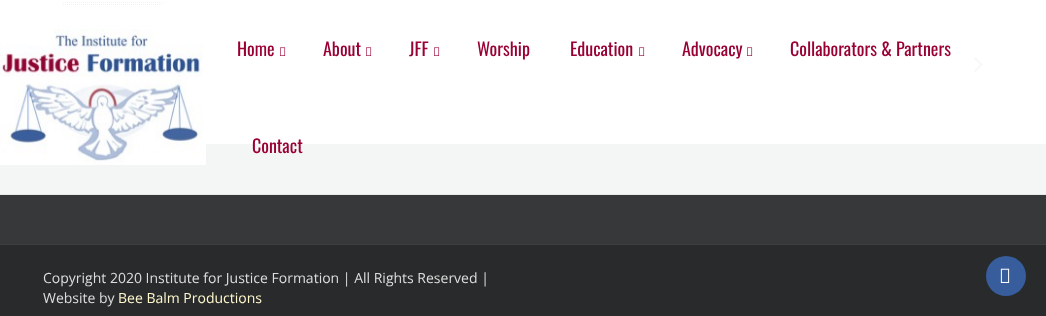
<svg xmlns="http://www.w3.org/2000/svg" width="1046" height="316">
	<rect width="100%" height="100%" fill="#FFFFFF" />
	<path d="M63 2.5H163.5" fill="none" stroke="#141827" stroke-dasharray="1 1" />
	<path d="M63 4.5H163" fill="none" stroke="#555555" stroke-dasharray="1 1" />
	<rect x="63" y="26" width="920" height="1" fill="#E4E4E4" />
	<image x="974" y="57" width="9" height="15" href="assets/img1.png" />
	<rect x="0" y="144" width="1046" height="100" fill="#363839" />
	<rect x="0" y="2" width="1046" height="192" fill="#FFFFFF" fill-opacity="0.95" />
	<rect x="0" y="194" width="1046" height="1" fill="#E8E8E8" />
	<image x="0" y="29" width="206" height="136" href="assets/img2.png" />
	<text x="237" y="56" font-family="Oswald" font-size="18" fill="#990033">Home</text>
	<image x="280" y="47" width="6" height="9" href="assets/img3.png" />
	<text x="323" y="56" font-family="Oswald" font-size="18" fill="#990033">About</text>
	<image x="366" y="47" width="6" height="9" href="assets/img3.png" />
	<text x="409" y="56" font-family="Oswald" font-size="18" fill="#990033">JFF</text>
	<image x="434" y="47" width="6" height="9" href="assets/img3.png" />
	<g font-family="Oswald" font-size="18" fill="#990033">
		<text x="477" y="56">Worship</text>
		<text x="570" y="56">Education</text>
	</g>
	<image x="639" y="47" width="6" height="9" href="assets/img3.png" />
	<text x="682" y="56" font-family="Oswald" font-size="18" fill="#990033">Advocacy</text>
	<image x="747" y="47" width="6" height="9" href="assets/img3.png" />
	<g font-family="Oswald" font-size="18" fill="#990033">
		<text x="790" y="56">Collaborators &amp; Partners</text>
		<text x="252" y="153">Contact</text>
	</g>
	<rect x="0" y="244" width="1046" height="1" fill="#3F3F3F" />
	<rect x="0" y="245" width="1046" height="71" fill="#282A2B" />
	<g font-family="Open Sans" font-size="14" fill="#DDDDDD">
		<text x="43" y="283">Copyright 2020 Institute for Justice Formation | All Rights Reserved |</text>
		<text x="43" y="303">Website by</text>
	</g>
	<text x="118" y="303" font-family="Open Sans" font-size="14" fill="#FFF8CD">Bee Balm Productions</text>
	<circle cx="1006" cy="276" r="20" fill="#375D9C" />
	<image x="1000" y="268" width="10" height="15" href="assets/img4.png" />
</svg>
